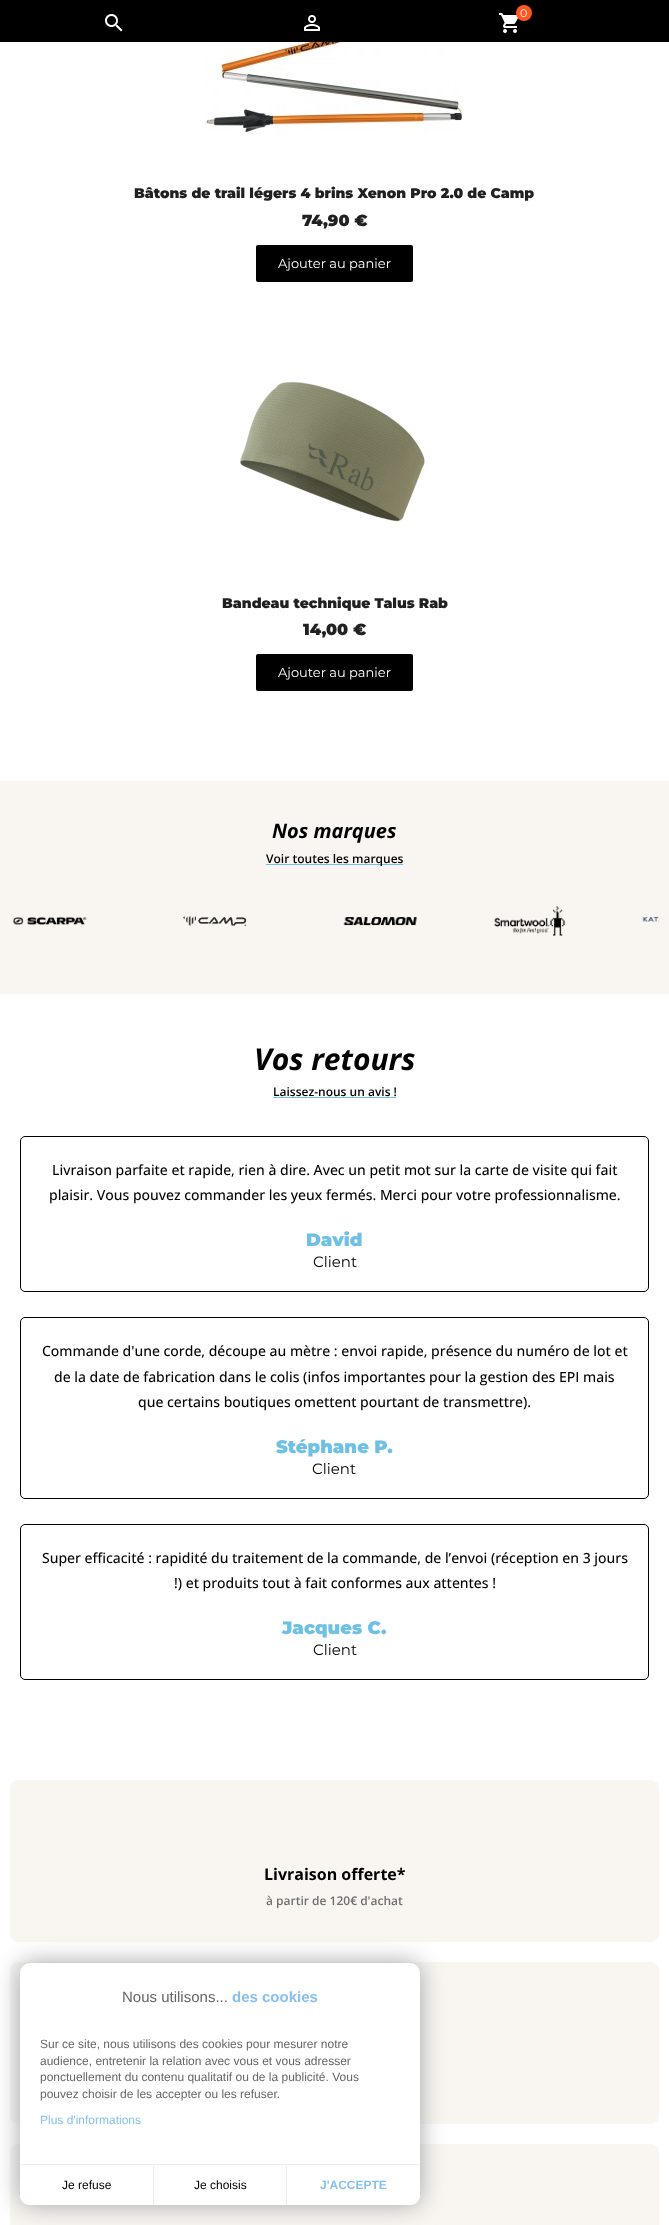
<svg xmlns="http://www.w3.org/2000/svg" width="669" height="2225">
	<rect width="100%" height="100%" fill="#FFFFFF" />
	<rect x="0" y="0" width="669" height="42" fill="#000000" />
	<image x="105" y="14" width="18" height="18" href="assets/img1.png" />
	<image x="304" y="15" width="16" height="16" href="assets/img2.png" />
	<image x="499" y="13" width="19" height="20" href="assets/img3.png" />
	<circle cx="524" cy="13" r="8" fill="#FF5722" />
	<text x="520" y="17" font-family="Montserrat" font-size="11" fill="#FFFFFF">0</text>
	<rect x="10" y="1780" width="649" height="162" rx="8" fill="#F9F6F1" />
	<rect x="10" y="1962" width="649" height="162" rx="8" fill="#F9F6F1" />
	<rect x="10" y="2144" width="649" height="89" rx="8" fill="#F9F6F1" />
	<rect x="20" y="1963" width="400" height="242" rx="10" fill="#A3A3A3" filter="blur(12.5px)" />
	<rect x="20" y="1963" width="400" height="242" rx="10" fill="#FFFFFF" />
	<text x="122" y="2002" font-family="Liberation Sans" font-size="15" fill="#666666">Nous utilisons...</text>
	<text x="232" y="2002" font-family="Liberation Sans" font-size="15" font-weight="700" fill="#86C0F0">des cookies</text>
	<g font-family="Liberation Sans" font-size="12" fill="#666666">
		<text x="40" y="2048">Sur ce site, nous utilisons des cookies pour mesurer notre</text>
		<text x="40" y="2065">audience, entretenir la relation avec vous et vous adresser</text>
		<text x="40" y="2081">ponctuellement du contenu qualitatif ou de la publicité. Vous</text>
		<text x="40" y="2098">pouvez choisir de les accepter ou les refuser.</text>
	</g>
	<text x="40" y="2124" font-family="Liberation Sans" font-size="12" fill="#86C0F0">Plus d'informations</text>
	<rect x="20" y="2164" width="400" height="1" fill="#EDEDED" />
	<path d="M20 2165H153V2205H30C24.5 2205 20 2200.5 20 2195Z" fill="#FFFFFF" />
	<text x="62" y="2189" font-family="Liberation Sans" font-size="12" fill="#000000">Je refuse</text>
	<rect x="286" y="2165" width="1" height="40" fill="#EDEDED" />
	<rect x="153" y="2165" width="1" height="40" fill="#EDEDED" />
	<text x="194" y="2189" font-family="Liberation Sans" font-size="12" fill="#000000">Je choisis</text>
	<path d="M287 2165H420V2195C420 2200.5 415.5 2205 410 2205H287Z" fill="#FFFFFF" />
	<text x="320" y="2189" font-family="Liberation Sans" font-size="12" font-weight="700" fill="#86C0F0">J'ACCEPTE</text>
	<image x="205" y="42" width="259" height="94" href="assets/img4.png" />
	<text x="134" y="198" font-family="Montserrat" font-size="14" font-weight="900" fill="#202020">Bâtons de trail légers 4 brins Xenon Pro 2.0 de Camp</text>
	<text x="302" y="226" font-family="Montserrat" font-size="16" font-weight="900" fill="#202020">74,90 €</text>
	<rect x="256" y="245" width="157" height="37" rx="2" fill="#000000" />
	<text x="278" y="268" font-family="Montserrat" font-size="13" fill="#FFFFFF">Ajouter au panier</text>
	<image x="240" y="382" width="185" height="140" href="assets/img5.png" />
	<text x="222" y="608" font-family="Montserrat" font-size="14" font-weight="900" fill="#202020">Bandeau technique Talus Rab</text>
	<text x="303" y="635" font-family="Montserrat" font-size="16" font-weight="900" fill="#202020">14,00 €</text>
	<rect x="256" y="654" width="157" height="37" rx="2" fill="#000000" />
	<text x="278" y="677" font-family="Montserrat" font-size="13" fill="#FFFFFF">Ajouter au panier</text>
	<rect x="0" y="781" width="669" height="213" fill="#F9F6F1" />
	<text x="272" y="838" font-family="Open Sans" font-size="20" font-weight="700" font-style="italic" fill="#000000">Nos marques</text>
	<rect x="266" y="864" width="137" height="1" fill="#6EC1E4" />
	<text x="266" y="863" font-family="Open Sans" font-size="12" font-weight="600" fill="#000000">Voir toutes les marques</text>
	<image x="13" y="917" width="74" height="8" href="assets/img6.png" />
	<image x="183" y="916" width="64" height="10" href="assets/img7.png" />
	<image x="343" y="917" width="74" height="9" href="assets/img8.png" />
	<image x="494" y="906" width="71" height="30" href="assets/img9.png" />
	<image x="642" y="917" width="17" height="5" href="assets/img10.png" />
	<text x="254" y="1070" font-family="Open Sans" font-size="30" font-weight="700" font-style="italic" fill="#000000">Vos retours</text>
	<text x="273" y="1096" font-family="Open Sans" font-size="12" font-weight="600" fill="#000000">Laissez-nous un avis !</text>
	<rect x="273" y="1097" width="123" height="1" fill="#6EC1E4" />
	<rect x="20.5" y="1136.5" width="628" height="155" rx="4.5" fill="none" stroke="#000000" />
	<g font-family="Open Sans" font-size="14" font-weight="500" fill="#000000">
		<text x="52" y="1175">Livraison parfaite et rapide, rien à dire. Avec un petit mot sur la carte de visite qui fait</text>
		<text x="49" y="1200">plaisir. Vous pouvez commander les yeux fermés. Merci pour votre professionnalisme.</text>
	</g>
	<text x="306" y="1246" font-family="Montserrat" font-size="18" font-weight="900" fill="#6EC1E4">David</text>
	<text x="313" y="1267" font-family="Montserrat" font-size="15" fill="#000000">Client</text>
	<rect x="20.5" y="1317.5" width="628" height="181" rx="4.5" fill="none" stroke="#000000" />
	<g font-family="Open Sans" font-size="14" font-weight="500" fill="#000000">
		<text x="42" y="1356">Commande d'une corde, découpe au mètre : envoi rapide, présence du numéro de lot et</text>
		<text x="54" y="1382">de la date de fabrication dans le colis (infos importantes pour la gestion des EPI mais</text>
		<text x="138" y="1407">que certains boutiques omettent pourtant de transmettre).</text>
	</g>
	<text x="276" y="1453" font-family="Montserrat" font-size="18" font-weight="900" fill="#6EC1E4">Stéphane P.</text>
	<text x="312" y="1474" font-family="Montserrat" font-size="15" fill="#000000">Client</text>
	<rect x="20.5" y="1524.5" width="628" height="155" rx="4.5" fill="none" stroke="#000000" />
	<g font-family="Open Sans" font-size="14" font-weight="500" fill="#000000">
		<text x="42" y="1563">Super efficacité : rapidité du traitement de la commande, de l’envoi (réception en 3 jours</text>
		<text x="174" y="1588">!) et produits tout à fait conformes aux attentes !</text>
	</g>
	<text x="282" y="1634" font-family="Montserrat" font-size="18" font-weight="900" fill="#6EC1E4">Jacques C.</text>
	<text x="313" y="1655" font-family="Montserrat" font-size="15" fill="#000000">Client</text>
	<text x="264" y="1880" font-family="Open Sans" font-size="16" font-weight="700" fill="#000000">Livraison offerte*</text>
	<text x="266" y="1905" font-family="Open Sans" font-size="12" font-weight="600" fill="#707070">à partir de 120€ d'achat</text>
</svg>
